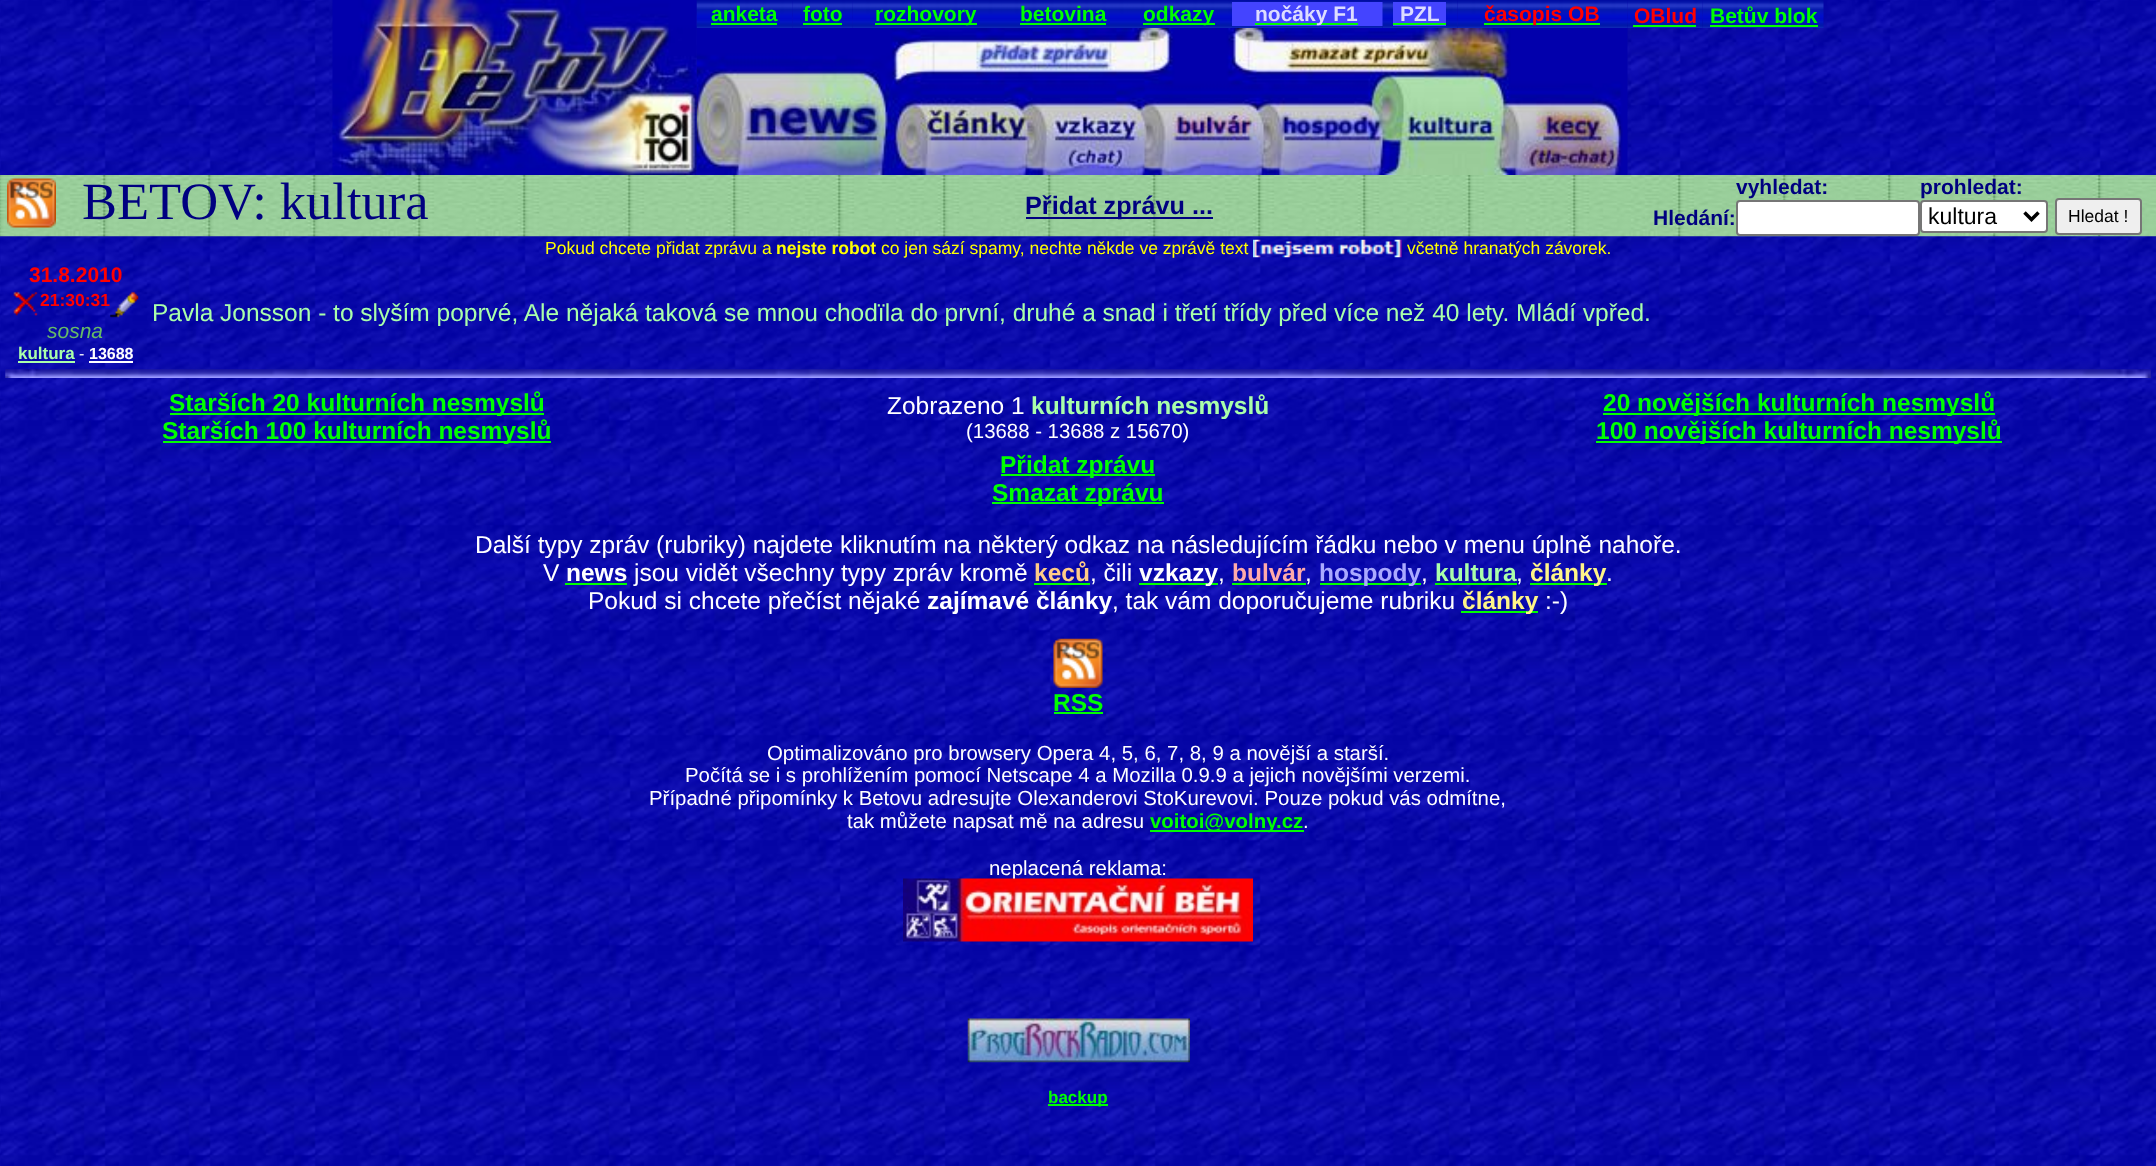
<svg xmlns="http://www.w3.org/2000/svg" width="2156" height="1166">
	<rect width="100%" height="100%" fill="#FFFFFF" />
	<image x="0" y="0" width="2156" height="1166" href="assets/img1.png" />
	<image x="696" y="0" width="97" height="28" href="assets/img3.png" />
	<image x="696" y="28" width="932" height="147" href="assets/img13.png" />
	<image x="332" y="0" width="365" height="175" href="assets/img2.png" />
	<text x="711" y="21" font-family="Liberation Sans" font-size="21" font-weight="700" fill="#00FF00">anketa</text>
	<rect x="711" y="23" width="66" height="2" fill="#00FF00" />
	<image x="793" y="0" width="60" height="28" href="assets/img4.png" />
	<text x="803" y="21" font-family="Liberation Sans" font-size="21" font-weight="700" fill="#00FF00">foto</text>
	<rect x="803" y="23" width="39" height="2" fill="#00FF00" />
	<image x="852" y="0" width="149" height="28" href="assets/img5.png" />
	<rect x="875" y="23" width="102" height="2" fill="#00FF00" />
	<text x="875" y="21" font-family="Liberation Sans" font-size="21" font-weight="700" fill="#00FF00">rozhovory</text>
	<image x="1001" y="0" width="126" height="28" href="assets/img6.png" />
	<text x="1020" y="21" font-family="Liberation Sans" font-size="21" font-weight="700" fill="#00FF00">betovina</text>
	<rect x="1020" y="23" width="86" height="2" fill="#00FF00" />
	<image x="1127" y="0" width="105" height="28" href="assets/img7.png" />
	<rect x="1143" y="23" width="72" height="2" fill="#00FF00" />
	<text x="1143" y="21" font-family="Liberation Sans" font-size="21" font-weight="700" fill="#00FF00">odkazy</text>
	<image x="1232" y="0" width="151" height="28" href="assets/img8.png" />
	<rect x="1232" y="2" width="151" height="24" fill="#4444FF" />
	<rect x="1255" y="23" width="103" height="2" fill="#00FF00" />
	<text x="1255" y="21" font-family="Liberation Sans" font-size="21" font-weight="700" fill="#DDDDFF">nočáky F1</text>
	<image x="1382" y="0" width="76" height="28" href="assets/img9.png" />
	<rect x="1393" y="2" width="53" height="24" fill="#4444FF" />
	<text x="1400" y="21" font-family="Liberation Sans" font-size="21" font-weight="700" fill="#DDDDFF">PZL</text>
	<rect x="1393" y="23" width="53" height="2" fill="#00FF00" />
	<image x="1458" y="0" width="170" height="28" href="assets/img10.png" />
	<rect x="1484" y="23" width="116" height="2" fill="#00FF00" />
	<text x="1484" y="21" font-family="Liberation Sans" font-size="21" font-weight="700" fill="#FF0000">časopis OB</text>
	<image x="1627" y="0" width="76" height="28" href="assets/img11.png" />
	<text x="1634" y="23" font-family="Liberation Sans" font-size="21" font-weight="700" fill="#FF0000">OBlud</text>
	<rect x="1633" y="25" width="63" height="2" fill="#00FF00" />
	<image x="1703" y="0" width="121" height="28" href="assets/img12.png" />
	<text x="1710" y="23" font-family="Liberation Sans" font-size="21" font-weight="700" fill="#00FF00">Betův blok</text>
	<rect x="1710" y="25" width="108" height="2" fill="#00FF00" />
	<image x="0" y="175" width="2156" height="62" href="assets/img14.png" />
	<image x="7" y="178" width="49" height="50" href="assets/img15.png" />
	<text x="82" y="219" font-family="Liberation Serif" font-size="52.5" fill="#000080">BETOV: kultura</text>
	<rect x="1026" y="217" width="187" height="2" fill="#000080" />
	<text x="1025" y="214" font-family="Liberation Sans" font-size="25.25" font-weight="700" fill="#000080">Přidat zprávu ...</text>
	<g font-family="Liberation Sans" font-size="21" font-weight="700" fill="#000080">
		<text x="1736" y="194">vyhledat:</text>
		<text x="1920" y="194">prohledat:</text>
		<text x="1653" y="225">Hledání:</text>
	</g>
	<rect x="1737" y="201" width="182" height="34" rx="3" fill="#FFFFFF" stroke="#767676" stroke-width="2" />
	<rect x="1921" y="201" width="126" height="31" rx="3" fill="#FFFFFF" stroke="#767676" stroke-width="2" />
	<path d="M2024.5 212.5L2031.5 219.5L2038.5 212.5" fill="none" stroke="#000000" stroke-width="3.5" />
	<text x="1928" y="224" font-family="Liberation Sans" font-size="23" fill="#000000">kultura</text>
	<rect x="2056" y="199" width="85" height="35" rx="3" fill="#EFEFEF" stroke="#767676" stroke-width="2" />
	<text x="2068" y="222" font-family="Liberation Sans" font-size="17.5" fill="#000000">Hledat !</text>
	<text x="545" y="254" font-family="Liberation Sans" font-size="17.5" fill="#FFFF00">Pokud chcete přidat zprávu a</text>
	<text x="776" y="254" font-family="Liberation Sans" font-size="17.5" font-weight="700" fill="#FFFF00">nejste robot</text>
	<text x="881" y="254" font-family="Liberation Sans" font-size="17.5" fill="#FFFF00">co jen sází spamy, nechte někde ve zprávě text</text>
	<image x="1253" y="239" width="149" height="19" href="assets/img16.png" />
	<text x="1407" y="254" font-family="Liberation Sans" font-size="17.5" fill="#FFFF00">včetně hranatých závorek.</text>
	<text x="29" y="282" font-family="Liberation Sans" font-size="21" font-weight="700" fill="#FF0000">31.8.2010</text>
	<image x="13" y="291" width="25" height="25" href="assets/img17.png" />
	<text x="40" y="306" font-family="Liberation Sans" font-size="17.5" font-weight="700" fill="#FF0000">21:30:31</text>
	<image x="110" y="291" width="29" height="27" href="assets/img18.png" />
	<text x="47" y="338" font-family="Liberation Sans" font-size="21" font-style="italic" fill="#66BB66">sosna</text>
	<text x="18" y="359" font-family="Liberation Sans" font-size="17" font-weight="700" fill="#AAFFAA">kultura</text>
	<rect x="18" y="361" width="57" height="2" fill="#AAFFAA" />
	<text x="79" y="359" font-family="Liberation Sans" font-size="16" fill="#FFFFFF">-</text>
	<text x="89" y="359" font-family="Liberation Sans" font-size="16" font-weight="700" fill="#FFFFFF">13688</text>
	<rect x="89" y="361" width="44" height="2" fill="#FFFFFF" />
	<text x="152" y="321" font-family="Liberation Sans" font-size="24.5" fill="#AAFFAA">Pavla Jonsson - to slyším poprvé, Ale nějaká taková se mnou chodïla do první, druhé a snad i třetí třídy před více než 40 lety. Mládí vpřed.</text>
	<image x="5" y="369" width="2146" height="9" href="assets/img19.png" />
	<rect x="170" y="413" width="374" height="2" fill="#00FF00" />
	<text x="169" y="411" font-family="Liberation Sans" font-size="24.5" font-weight="700" fill="#00FF00">Starších 20 kulturních nesmyslů</text>
	<rect x="163" y="441" width="388" height="2" fill="#00FF00" />
	<text x="162" y="439" font-family="Liberation Sans" font-size="24.5" font-weight="700" fill="#00FF00">Starších 100 kulturních nesmyslů</text>
	<text x="887" y="414" font-family="Liberation Sans" font-size="24.5" fill="#FFFFFF">Zobrazeno 1</text>
	<text x="1031" y="414" font-family="Liberation Sans" font-size="24.5" font-weight="700" fill="#AAFFAA">kulturních nesmyslů</text>
	<text x="966" y="438" font-family="Liberation Sans" font-size="20.4" fill="#FFFFFF">(13688 - 13688 z 15670)</text>
	<rect x="1603" y="413" width="392" height="2" fill="#00FF00" />
	<text x="1603" y="411" font-family="Liberation Sans" font-size="24.5" font-weight="700" fill="#00FF00">20 novějších kulturních nesmyslů</text>
	<rect x="1596" y="441" width="406" height="2" fill="#00FF00" />
	<text x="1596" y="439" font-family="Liberation Sans" font-size="24.5" font-weight="700" fill="#00FF00">100 novějších kulturních nesmyslů</text>
	<rect x="1001" y="474" width="154" height="2" fill="#00FF00" />
	<text x="1000" y="473" font-family="Liberation Sans" font-size="24.5" font-weight="700" fill="#00FF00">Přidat zprávu</text>
	<rect x="992" y="502" width="172" height="2" fill="#00FF00" />
	<text x="992" y="501" font-family="Liberation Sans" font-size="24.5" font-weight="700" fill="#00FF00">Smazat zprávu</text>
	<g font-family="Liberation Sans" font-size="24.5" fill="#FFFFFF">
		<text x="475" y="553">Další typy zpráv (rubriky) najdete kliknutím na některý odkaz na následujícím řádku nebo v menu úplně nahoře.</text>
		<text x="543" y="581">V</text>
	</g>
	<text x="566" y="581" font-family="Liberation Sans" font-size="24.5" font-weight="700" fill="#FFFFFF">news</text>
	<rect x="565" y="583" width="62" height="2" fill="#00FF00" />
	<text x="634" y="581" font-family="Liberation Sans" font-size="24.5" fill="#FFFFFF">jsou vidět všechny typy zpráv kromě</text>
	<text x="1034" y="581" font-family="Liberation Sans" font-size="24.5" font-weight="700" fill="#FFCC88">keců</text>
	<rect x="1034" y="583" width="56" height="2" fill="#00FF00" />
	<text x="1090" y="581" font-family="Liberation Sans" font-size="24.5" fill="#FFFFFF">, čili</text>
	<rect x="1139" y="583" width="79" height="2" fill="#00FF00" />
	<text x="1139" y="581" font-family="Liberation Sans" font-size="24.5" font-weight="700" fill="#FFFFFF">vzkazy</text>
	<text x="1218" y="581" font-family="Liberation Sans" font-size="24.5" fill="#FFFFFF">,</text>
	<text x="1232" y="581" font-family="Liberation Sans" font-size="24.5" font-weight="700" fill="#FFAAAA">bulvár</text>
	<rect x="1232" y="583" width="74" height="2" fill="#00FF00" />
	<text x="1305" y="581" font-family="Liberation Sans" font-size="24.5" fill="#FFFFFF">,</text>
	<rect x="1320" y="583" width="101" height="2" fill="#00FF00" />
	<text x="1319" y="581" font-family="Liberation Sans" font-size="24.5" font-weight="700" fill="#AAAAFF">hospody</text>
	<text x="1421" y="581" font-family="Liberation Sans" font-size="24.5" fill="#FFFFFF">,</text>
	<text x="1435" y="581" font-family="Liberation Sans" font-size="24.5" font-weight="700" fill="#AAFFAA">kultura</text>
	<rect x="1435" y="583" width="82" height="2" fill="#00FF00" />
	<text x="1516" y="581" font-family="Liberation Sans" font-size="24.5" fill="#FFFFFF">,</text>
	<rect x="1530" y="583" width="77" height="2" fill="#00FF00" />
	<text x="1530" y="581" font-family="Liberation Sans" font-size="24.5" font-weight="700" fill="#FFF588">články</text>
	<g font-family="Liberation Sans" font-size="24.5" fill="#FFFFFF">
		<text x="1606" y="581">.</text>
		<text x="588" y="609">Pokud si chcete přečíst nějaké</text>
	</g>
	<text x="927" y="609" font-family="Liberation Sans" font-size="24.5" font-weight="700" fill="#FFFFFF">zajímavé články</text>
	<text x="1112" y="609" font-family="Liberation Sans" font-size="24.5" fill="#FFFFFF">, tak vám doporučujeme rubriku</text>
	<rect x="1461" y="611" width="77" height="2" fill="#00FF00" />
	<text x="1462" y="609" font-family="Liberation Sans" font-size="24.5" font-weight="700" fill="#FFF588">články</text>
	<text x="1545" y="609" font-family="Liberation Sans" font-size="24.5" fill="#FFFFFF">:-)</text>
	<image x="1053" y="638" width="50" height="50" href="assets/img20.png" />
	<text x="1053" y="711" font-family="Liberation Sans" font-size="24.5" font-weight="700" fill="#00FF00">RSS</text>
	<rect x="1054" y="712" width="49" height="2" fill="#00FF00" />
	<g font-family="Liberation Sans" font-size="20.4" fill="#FFFFFF">
		<text x="767" y="760">Optimalizováno pro browsery Opera 4, 5, 6, 7, 8, 9 a novější a starší.</text>
		<text x="685" y="782">Počítá se i s prohlížením pomocí Netscape 4 a Mozilla 0.9.9 a jejich novějšími verzemi.</text>
		<text x="649" y="805">Případné připomínky k Betovu adresujte Olexanderovi StoKurevovi. Pouze pokud vás odmítne,</text>
		<text x="847" y="828">tak můžete napsat mě na adresu</text>
	</g>
	<rect x="1150" y="830" width="154" height="2" fill="#00FF00" />
	<text x="1150" y="828" font-family="Liberation Sans" font-size="20.4" font-weight="700" fill="#00FF00">voitoi@volny.cz</text>
	<g font-family="Liberation Sans" font-size="20.4" fill="#FFFFFF">
		<text x="1303" y="828">.</text>
		<text x="989" y="875">neplacená reklama:</text>
	</g>
	<image x="903" y="878" width="350" height="64" href="assets/img21.png" />
	<image x="967" y="1018" width="223" height="45" href="assets/img22.png" />
	<rect x="1048" y="1104" width="60" height="2" fill="#00FF00" />
	<text x="1048" y="1103" font-family="Liberation Sans" font-size="17" font-weight="700" fill="#00FF00">backup</text>
</svg>
